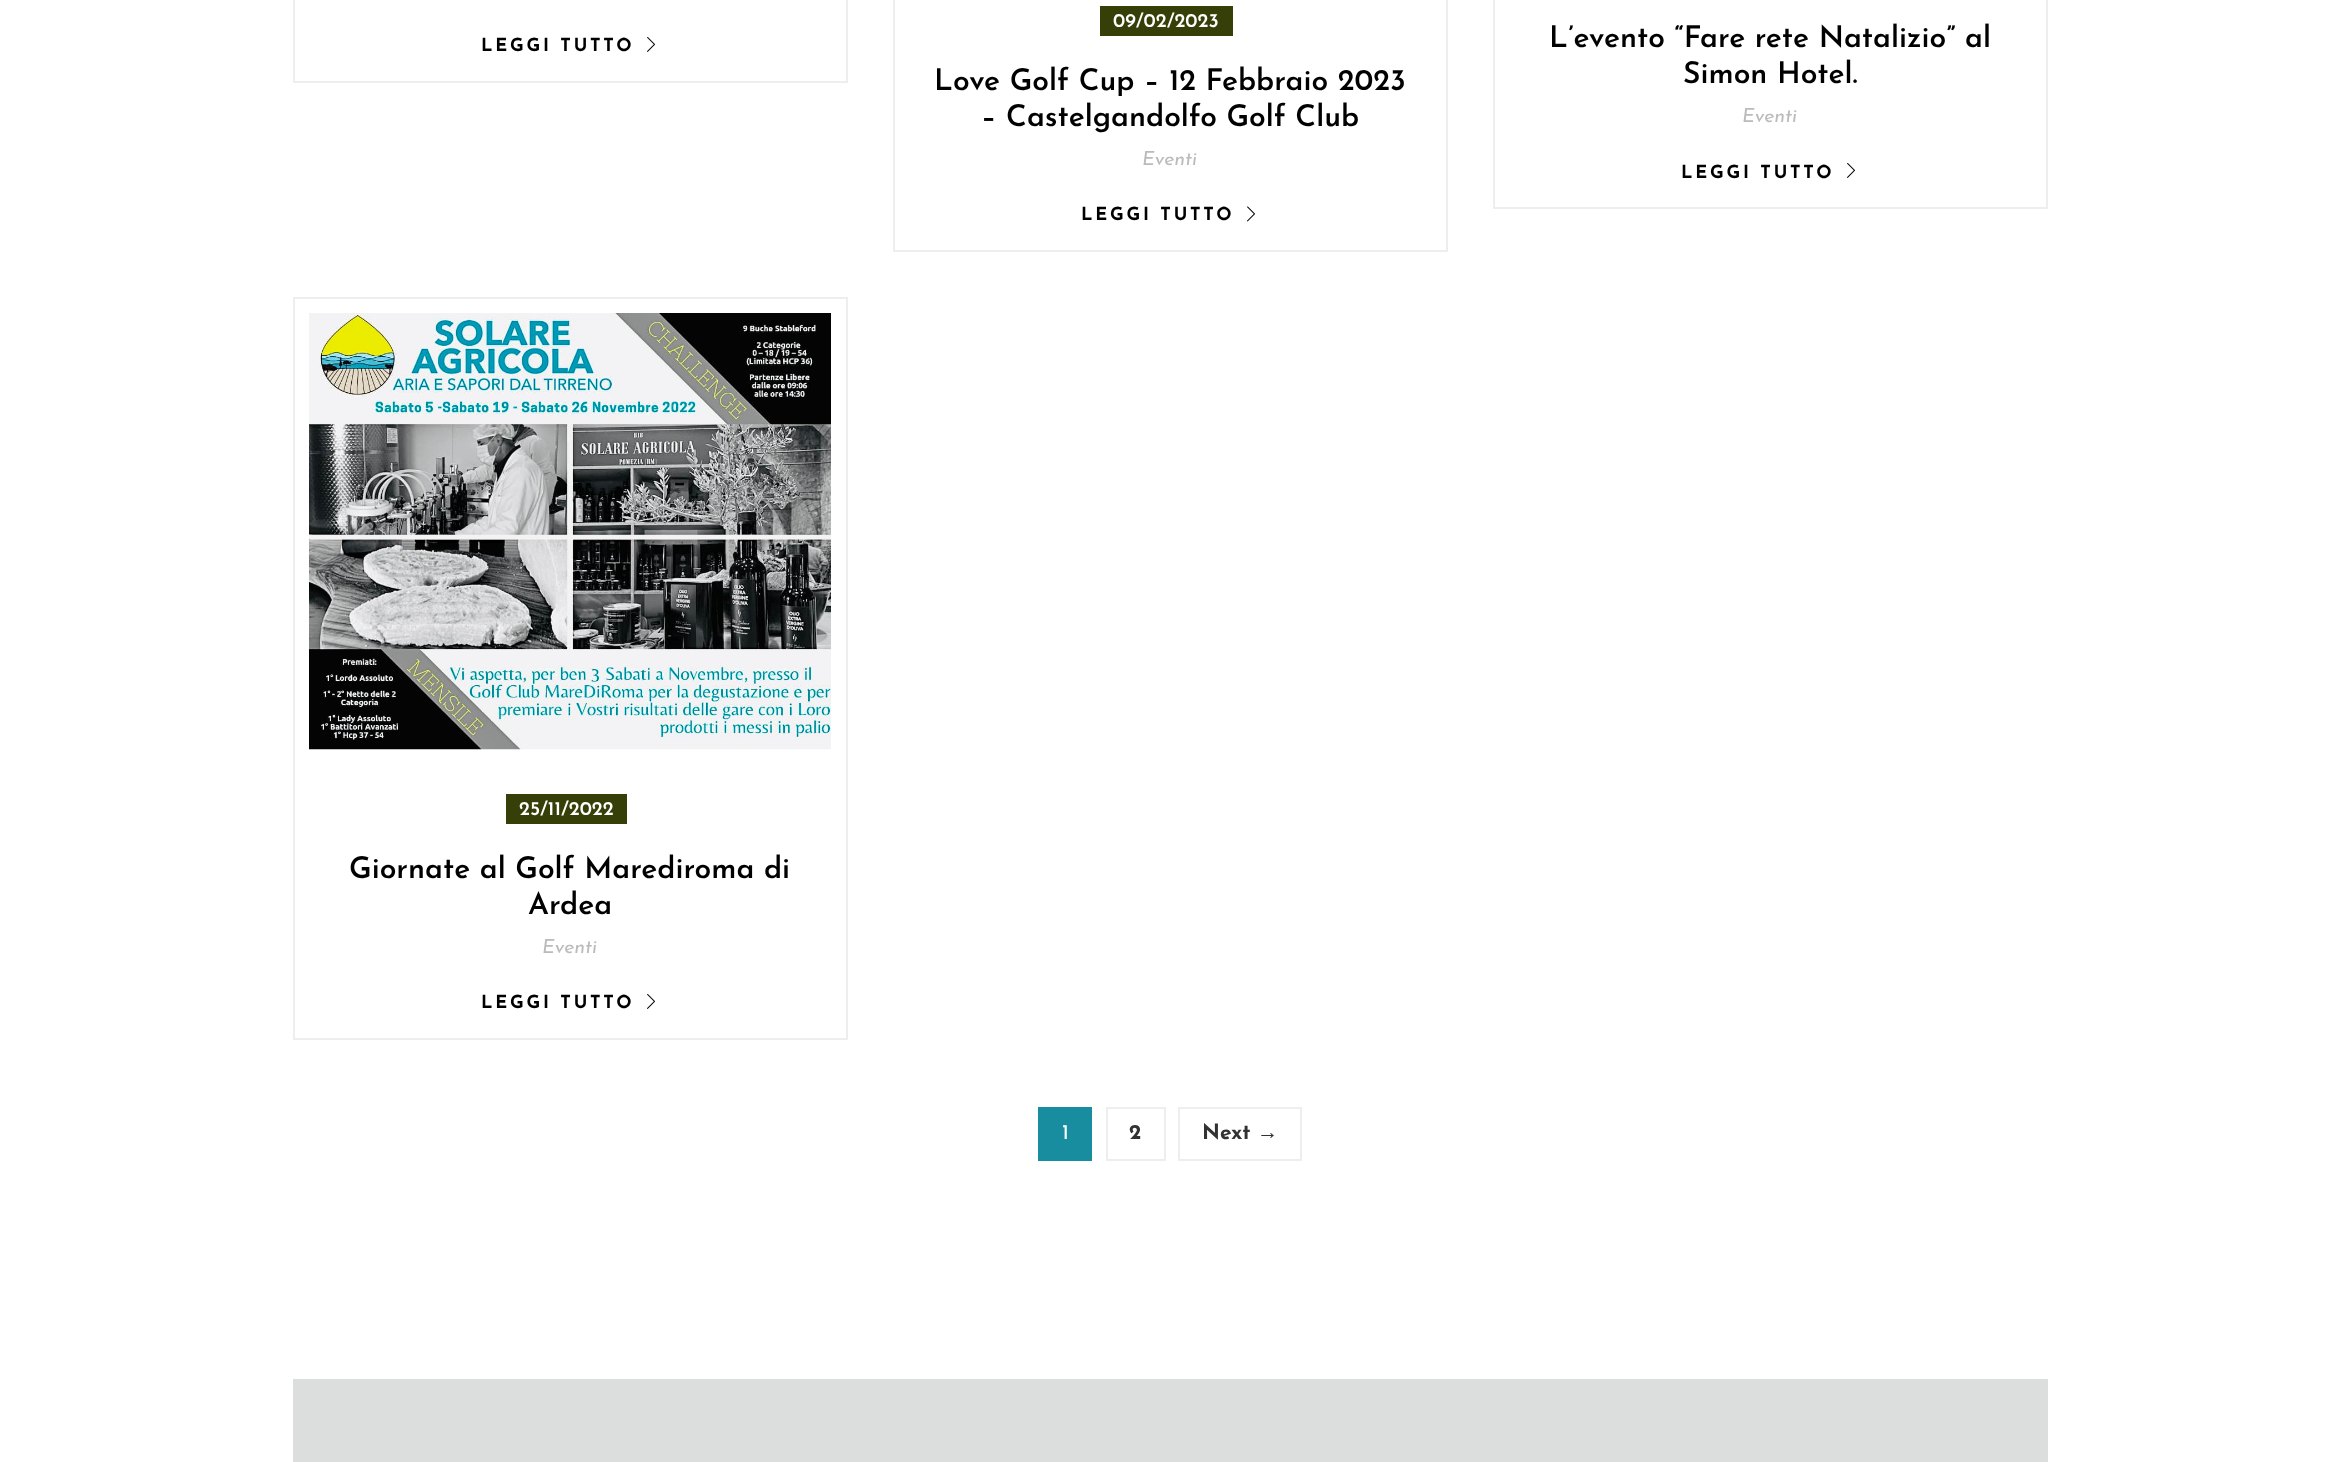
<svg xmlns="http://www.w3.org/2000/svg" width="2340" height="1462">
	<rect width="100%" height="100%" fill="#FFFFFF" />
	<rect x="294" y="-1" width="553" height="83" fill="none" stroke="#EEEEEE" stroke-width="2" />
	<text x="481" y="51" font-family="Josefin Sans" font-size="18" font-weight="700" letter-spacing="2.75" fill="#000000">LEGGI TUTTO</text>
	<image x="647" y="37" width="8" height="15" href="assets/img1.png" />
	<rect x="894" y="-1" width="553" height="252" fill="none" stroke="#EEEEEE" stroke-width="2" />
	<rect x="1100" y="6" width="133" height="30" fill="#373F08" />
	<text x="1113" y="27" font-family="Josefin Sans" font-size="19.5" font-weight="600" fill="#FFFFFF">09/02/2023</text>
	<g font-family="Josefin Sans" font-size="30" font-weight="600" fill="#000000">
		<text x="934" y="90">Love Golf Cup – 12 Febbraio 2023</text>
		<text x="981" y="126">– Castelgandolfo Golf Club</text>
	</g>
	<text x="1142" y="165" font-family="Josefin Sans" font-size="19.5" font-style="italic" fill="#BBBBBB">Eventi</text>
	<text x="1081" y="220" font-family="Josefin Sans" font-size="18" font-weight="700" letter-spacing="2.75" fill="#000000">LEGGI TUTTO</text>
	<image x="1247" y="206" width="8" height="16" href="assets/img2.png" />
	<rect x="1494" y="-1" width="553" height="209" fill="none" stroke="#EEEEEE" stroke-width="2" />
	<g font-family="Josefin Sans" font-size="30" font-weight="600" fill="#000000">
		<text x="1549" y="47">L’evento “Fare rete Natalizio” al</text>
		<text x="1683" y="83">Simon Hotel.</text>
	</g>
	<text x="1742" y="122" font-family="Josefin Sans" font-size="19.5" font-style="italic" fill="#BBBBBB">Eventi</text>
	<text x="1681" y="178" font-family="Josefin Sans" font-size="18" font-weight="700" letter-spacing="2.75" fill="#000000">LEGGI TUTTO</text>
	<image x="1847" y="163" width="8" height="15" href="assets/img1.png" />
	<rect x="294" y="298" width="553" height="741" fill="none" stroke="#EEEEEE" stroke-width="2" />
	<image x="309" y="313" width="522" height="437" href="assets/img3.png" />
	<rect x="506" y="794" width="121" height="30" fill="#373F08" />
	<text x="519" y="815" font-family="Josefin Sans" font-size="19.5" font-weight="600" fill="#FFFFFF">25/11/2022</text>
	<g font-family="Josefin Sans" font-size="30" font-weight="600" fill="#000000">
		<text x="349" y="878">Giornate al Golf Marediroma di</text>
		<text x="528" y="914">Ardea</text>
	</g>
	<text x="542" y="953" font-family="Josefin Sans" font-size="19.5" font-style="italic" fill="#BBBBBB">Eventi</text>
	<text x="481" y="1008" font-family="Josefin Sans" font-size="18" font-weight="700" letter-spacing="2.75" fill="#000000">LEGGI TUTTO</text>
	<image x="647" y="994" width="8" height="15" href="assets/img1.png" />
	<rect x="1038" y="1107" width="54" height="54" fill="#198DA0" />
	<text x="1062" y="1139" font-family="Josefin Sans" font-size="21" fill="#FFFFFF">1</text>
	<rect x="1107" y="1108" width="58" height="52" fill="none" stroke="#EEEEEE" stroke-width="2" />
	<text x="1129" y="1139" font-family="Josefin Sans" font-size="21" font-weight="700" fill="#323232">2</text>
	<rect x="1179" y="1108" width="122" height="52" fill="none" stroke="#EEEEEE" stroke-width="2" />
	<text x="1202" y="1139" font-family="Josefin Sans" font-size="21" font-weight="700" fill="#323232">Next</text>
	<text x="1257" y="1139" font-family="Liberation Sans" font-size="21" font-weight="700" fill="#323232">→</text>
	<rect x="293" y="1379" width="1755" height="83" fill="#DBDEDD" />
</svg>
